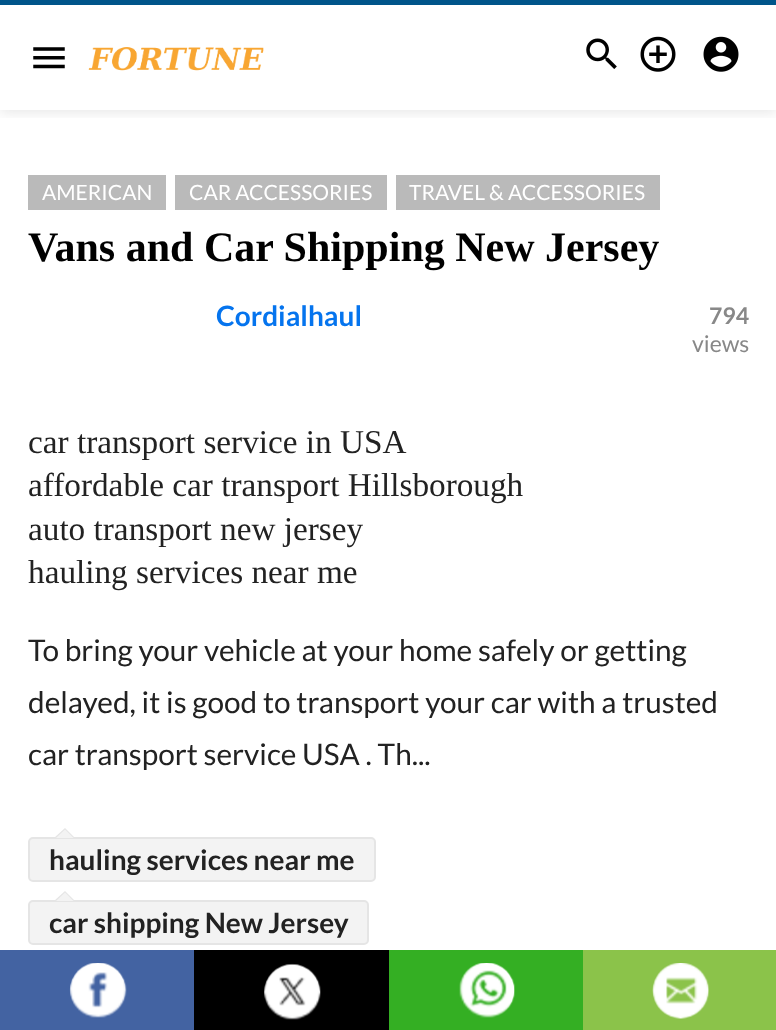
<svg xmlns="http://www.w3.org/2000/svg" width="776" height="1030">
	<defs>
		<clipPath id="clip1"><rect x="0" y="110" width="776" height="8" /></clipPath>
	</defs>
	<rect width="100%" height="100%" fill="#FFFFFF" />
	<g clip-path="url(#clip1)">
		<rect x="0" y="2" width="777" height="110" fill="#000000" fill-opacity="0.1" filter="blur(7px)" />
	</g>
	<rect x="0" y="0" width="776" height="5" fill="#00558A" />
	<image x="33" y="47" width="32" height="22" href="assets/img1.png" />
	<image x="88" y="47" width="176" height="24" href="assets/img2.png" />
	<image x="586" y="38" width="31" height="31" href="assets/img3.png" />
	<image x="640" y="36" width="36" height="36" href="assets/img4.png" />
	<image x="703" y="36" width="36" height="36" href="assets/img5.png" />
	<rect x="28" y="175" width="138" height="35" fill="#BABABA" />
	<text x="42" y="200" font-family="Lato" font-size="21" fill="#FFFFFF">AMERICAN</text>
	<rect x="175" y="175" width="212" height="35" fill="#BABABA" />
	<text x="189" y="200" font-family="Lato" font-size="21" fill="#FFFFFF">CAR ACCESSORIES</text>
	<rect x="396" y="175" width="264" height="35" fill="#BABABA" />
	<text x="409" y="200" font-family="Lato" font-size="21" fill="#FFFFFF">TRAVEL &amp; ACCESSORIES</text>
	<text x="28" y="261" font-family="Liberation Serif" font-size="42" font-weight="700" fill="#000000">Vans and Car Shipping New Jersey</text>
	<text x="216" y="326" font-family="Lato" font-size="28" font-weight="700" fill="#0574EE">Cordialhaul</text>
	<text x="709" y="324" font-family="Lato" font-size="23" font-weight="700" fill="#888888">794</text>
	<text x="692" y="352" font-family="Lato" font-size="23" fill="#888888">views</text>
	<g font-family="Liberation Serif" font-size="33.25" fill="#222222">
		<text x="28" y="453">car transport service in USA</text>
		<text x="28" y="496">affordable car transport Hillsborough</text>
		<text x="28" y="540">auto transport new jersey</text>
		<text x="28" y="583">hauling services near me</text>
	</g>
	<g font-family="Lato" font-size="29.75" fill="#222222">
		<text x="28" y="661">To bring your vehicle at your home safely or getting</text>
		<text x="28" y="713">delayed, it is good to transport your car with a trusted</text>
		<text x="28" y="765">car transport service USA . Th...</text>
	</g>
	<rect x="29" y="838" width="346" height="43" rx="4" fill="#F3F3F3" stroke="#E5E5E5" stroke-width="2" />
	<path d="M75 838H54L65 828Z" fill="#E5E5E5" />
	<path d="M73.5 838H56L65 829.5Z" fill="#F3F3F3" />
	<text x="49" y="870" font-family="Lato" font-size="28" font-weight="700" fill="#222222">hauling services near me</text>
	<rect x="29" y="901" width="339" height="43" rx="4" fill="#F3F3F3" stroke="#E5E5E5" stroke-width="2" />
	<path d="M75 901H54L65 891Z" fill="#E5E5E5" />
	<path d="M73.5 901H56L65 892.5Z" fill="#F3F3F3" />
	<text x="49" y="933" font-family="Lato" font-size="28" font-weight="700" fill="#222222">car shipping New Jersey</text>
	<rect x="0" y="950" width="194" height="80" fill="#4363A2" />
	<image x="69" y="963" width="58" height="55" href="assets/img6.png" />
	<rect x="194" y="950" width="195" height="80" fill="#000000" />
	<image x="264" y="963" width="57" height="57" href="assets/img7.png" />
	<rect x="389" y="950" width="194" height="80" fill="#34AF23" />
	<image x="459" y="963" width="56" height="55" href="assets/img8.png" />
	<rect x="583" y="950" width="193" height="80" fill="#8BC34A" />
	<image x="652" y="963" width="57" height="56" href="assets/img9.png" />
</svg>
